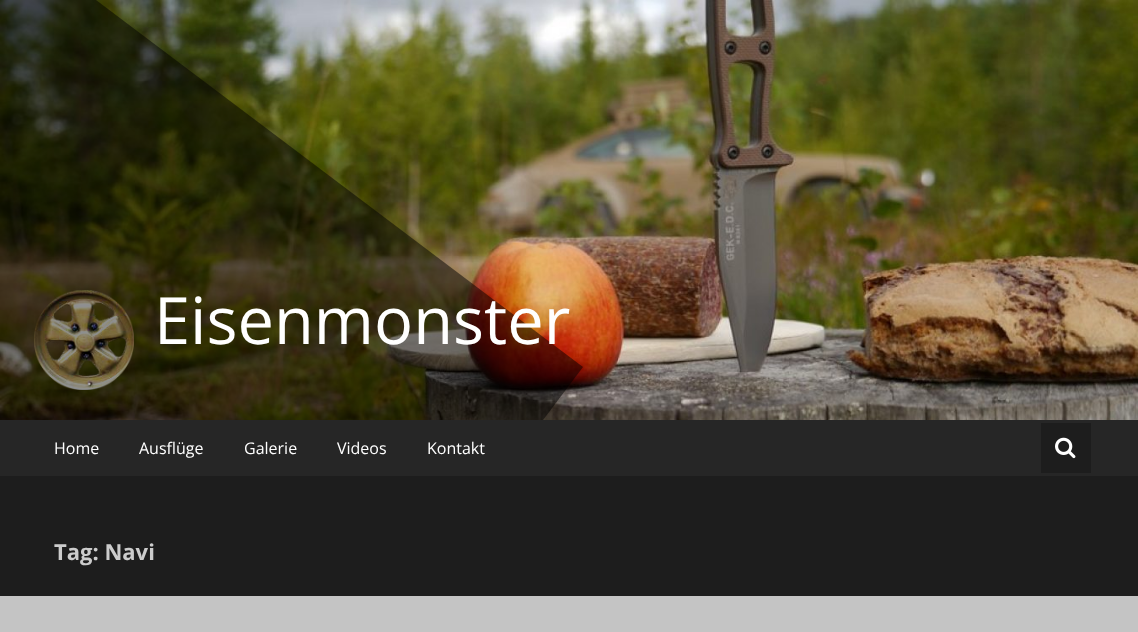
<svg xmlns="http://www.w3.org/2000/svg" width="1138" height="632">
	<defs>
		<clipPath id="clip1"><rect x="0" y="0" width="1138" height="420" /></clipPath>
	</defs>
	<rect width="100%" height="100%" fill="#C4C4C4" />
	<image x="0" y="0" width="1138" height="420" href="assets/img1.png" />
	<g clip-path="url(#clip1)">
		<path d="M-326-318L583 367L-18 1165L-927 480Z" fill="#000000" fill-opacity="0.5" />
	</g>
	<image x="34" y="290" width="100" height="100" href="assets/img2.png" />
	<text x="154" y="344" font-family="Open Sans" font-size="65" fill="#FFFFFF">Eisenmonster</text>
	<rect x="0" y="420" width="1138" height="56" fill="#262626" />
	<g font-family="Open Sans" font-size="16" fill="#FFFFFF">
		<text x="54" y="454">Home</text>
		<text x="139" y="454">Ausflüge</text>
		<text x="244" y="454">Galerie</text>
		<text x="337" y="454">Videos</text>
		<text x="427" y="454">Kontakt</text>
	</g>
	<rect x="1041" y="423" width="50" height="50" fill="#1D1D1D" />
	<image x="1055" y="437" width="21" height="22" href="assets/img3.png" />
	<rect x="0" y="476" width="1138" height="120" fill="#1D1D1D" />
	<text x="54" y="560" font-family="Open Sans" font-size="22" font-weight="700" fill="#CCCCCC">Tag: Navi</text>
</svg>
